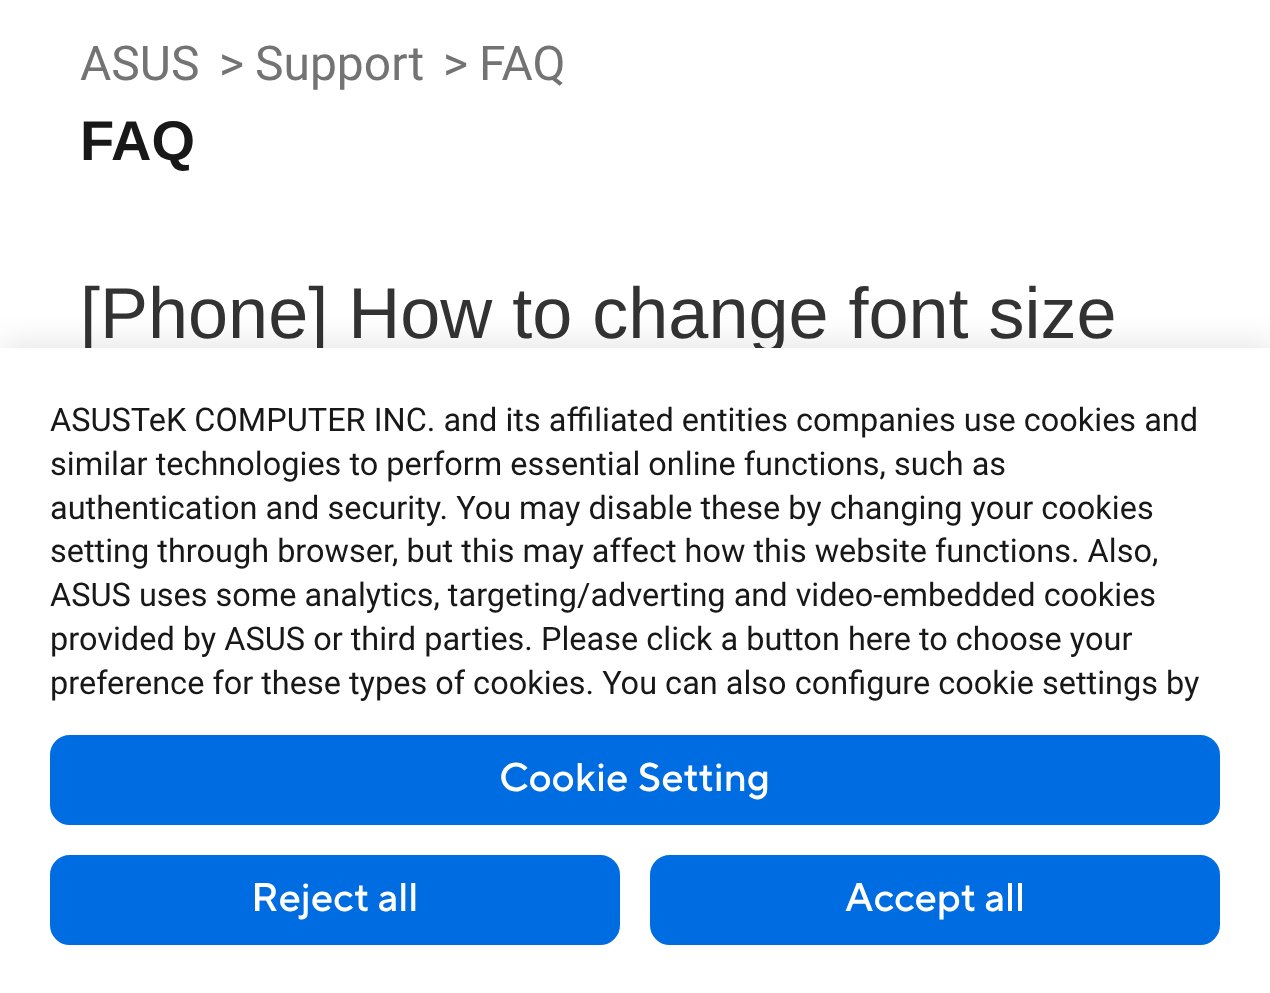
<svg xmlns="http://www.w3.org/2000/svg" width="1270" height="993">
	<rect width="100%" height="100%" fill="#FFFFFF" />
	<g font-family="Roboto" font-size="48" fill="#737373">
		<text x="80" y="80">ASUS</text>
		<text x="219" y="80">&gt;</text>
		<text x="255" y="80">Support</text>
		<text x="443" y="80">&gt;</text>
		<text x="479" y="80">FAQ</text>
	</g>
	<text x="80" y="160" font-family="Liberation Sans" font-size="56" font-weight="700" fill="#181818">FAQ</text>
	<text x="80" y="338" font-family="Liberation Sans" font-size="72" fill="#333333">[Phone] How to change font size</text>
	<rect x="3" y="343" width="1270" height="647" fill="#000000" fill-opacity="0.1" filter="blur(15px)" />
	<rect x="0" y="348" width="1270" height="645" fill="#FFFFFF" />
	<g font-family="Roboto" font-size="32.5" fill="#181818">
		<text x="50" y="431">ASUSTeK COMPUTER INC. and its affiliated entities companies use cookies and</text>
		<text x="50" y="475">similar technologies to perform essential online functions, such as</text>
		<text x="50" y="519">authentication and security. You may disable these by changing your cookies</text>
		<text x="50" y="562">setting through browser, but this may affect how this website functions. Also,</text>
		<text x="50" y="606">ASUS uses some analytics, targeting/adverting and video-embedded cookies</text>
		<text x="50" y="650">provided by ASUS or third parties. Please click a button here to choose your</text>
		<text x="50" y="694">preference for these types of cookies. You can also configure cookie settings by</text>
	</g>
	<rect x="52.5" y="737.5" width="1165" height="85" rx="17.5" fill="#006CE1" stroke="#006CE1" stroke-width="5" />
	<text x="499" y="791" font-family="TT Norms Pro" font-size="40" font-weight="500" fill="#FFFFFF">Cookie Setting</text>
	<rect x="52.5" y="857.5" width="565" height="85" rx="17.5" fill="#006CE1" stroke="#006CE1" stroke-width="5" />
	<text x="251" y="911" font-family="TT Norms Pro" font-size="40" font-weight="500" fill="#FFFFFF">Reject all</text>
	<rect x="652.5" y="857.5" width="565" height="85" rx="17.5" fill="#006CE1" stroke="#006CE1" stroke-width="5" />
	<text x="845" y="911" font-family="TT Norms Pro" font-size="40" font-weight="500" fill="#FFFFFF">Accept all</text>
</svg>
